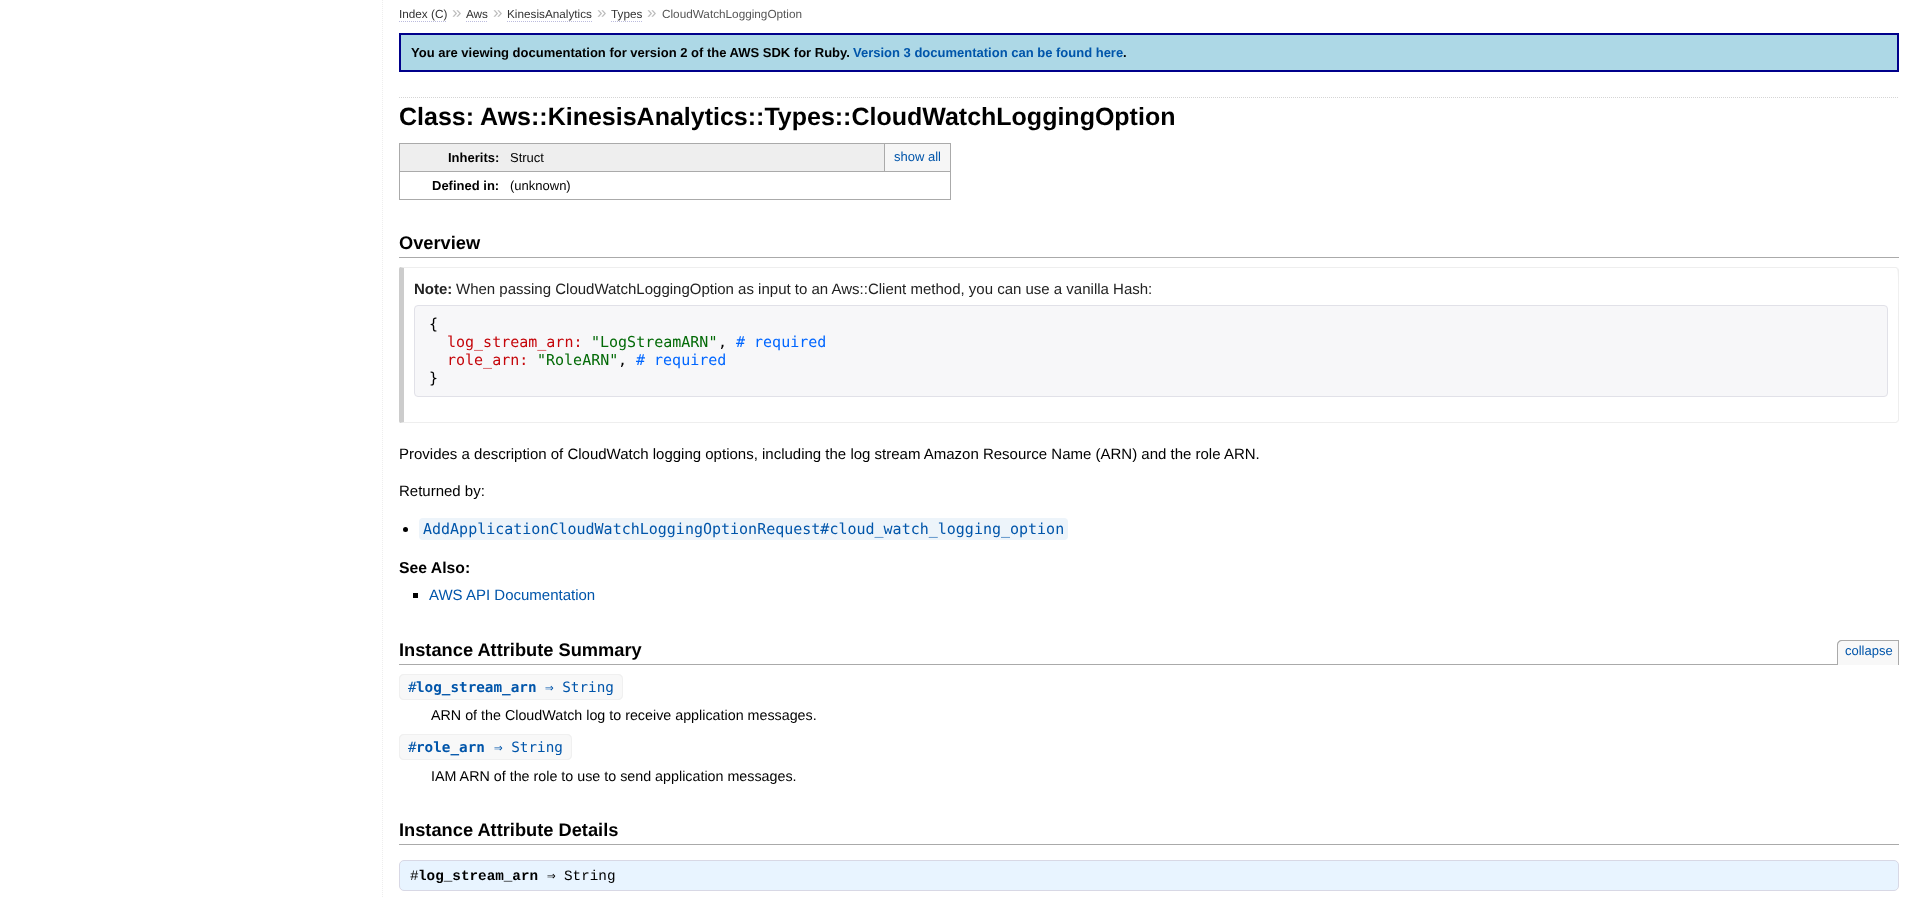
<svg xmlns="http://www.w3.org/2000/svg" width="1915" height="898">
	<rect width="100%" height="100%" fill="#FFFFFF" />
	<path d="M382.5 0V898" fill="none" stroke="#EEEEEE" stroke-dasharray="1 1" />
	<text x="399" y="18" font-family="Liberation Sans" font-size="11.75" fill="#333333">Index (C)</text>
	<path d="M399 21.5H447" fill="none" stroke="#BBBBDD" stroke-dasharray="1 1" />
	<text x="452" y="18" font-family="Liberation Sans" font-size="17" fill="#BBBBBB">»</text>
	<text x="466" y="18" font-family="Liberation Sans" font-size="11.75" fill="#333333">Aws</text>
	<path d="M466 21.5H488" fill="none" stroke="#BBBBDD" stroke-dasharray="1 1" />
	<text x="493" y="18" font-family="Liberation Sans" font-size="17" fill="#BBBBBB">»</text>
	<text x="507" y="18" font-family="Liberation Sans" font-size="11.75" fill="#333333">KinesisAnalytics</text>
	<path d="M507 21.5H592" fill="none" stroke="#BBBBDD" stroke-dasharray="1 1" />
	<text x="597" y="18" font-family="Liberation Sans" font-size="17" fill="#BBBBBB">»</text>
	<text x="611" y="18" font-family="Liberation Sans" font-size="11.75" fill="#333333">Types</text>
	<path d="M611 21.5H643" fill="none" stroke="#BBBBDD" stroke-dasharray="1 1" />
	<text x="647" y="18" font-family="Liberation Sans" font-size="17" fill="#BBBBBB">»</text>
	<text x="662" y="18" font-family="Liberation Sans" font-size="11.75" fill="#555555">CloudWatchLoggingOption</text>
	<rect x="400" y="34" width="1498" height="37" fill="#ADD8E6" stroke="#00008B" stroke-width="2" />
	<text x="411" y="57" font-family="Liberation Sans" font-size="13" font-weight="700" fill="#000000">You are viewing documentation for version 2 of the AWS SDK for Ruby.</text>
	<text x="853" y="57" font-family="Liberation Sans" font-size="13" font-weight="700" fill="#0055AA">Version 3 documentation can be found here</text>
	<text x="1123" y="57" font-family="Liberation Sans" font-size="13" font-weight="700" fill="#000000">.</text>
	<path d="M399 97.5H1899" fill="none" stroke="#D5D5D5" stroke-dasharray="1 1" />
	<text x="399" y="125" font-family="Liberation Sans" font-size="25" font-weight="700" fill="#000000">Class: Aws::KinesisAnalytics::Types::CloudWatchLoggingOption</text>
	<rect x="400" y="144" width="484" height="27" fill="#EEEEEE" />
	<rect x="399" y="143" width="552" height="1" fill="#AAAAAA" />
	<rect x="399" y="143" width="1" height="28" fill="#AAAAAA" />
	<text x="448" y="162" font-family="Liberation Sans" font-size="13" font-weight="700" fill="#000000">Inherits:</text>
	<rect x="399" y="171" width="552" height="1" fill="#AAAAAA" />
	<rect x="950" y="143" width="1" height="57" fill="#AAAAAA" />
	<text x="510" y="162" font-family="Liberation Sans" font-size="13" fill="#000000">Struct</text>
	<rect x="885" y="144" width="65" height="27" fill="#F6F6F6" />
	<rect x="884" y="144" width="1" height="27" fill="#AAAAAA" />
	<text x="894" y="161" font-family="Liberation Sans" font-size="13" fill="#0055AA">show all</text>
	<rect x="399" y="199" width="111" height="1" fill="#AAAAAA" />
	<rect x="399" y="171" width="1" height="29" fill="#AAAAAA" />
	<text x="432" y="190" font-family="Liberation Sans" font-size="13" font-weight="700" fill="#000000">Defined in:</text>
	<rect x="510" y="199" width="441" height="1" fill="#AAAAAA" />
	<text x="510" y="190" font-family="Liberation Sans" font-size="13" fill="#000000">(unknown)</text>
	<rect x="399" y="257" width="1500" height="1" fill="#AAAAAA" />
	<text x="399" y="249" font-family="Liberation Sans" font-size="18.25" font-weight="700" fill="#000000">Overview</text>
	<path d="M402 267H400L404 268H1896L1897 269L1898 268L1896 267Z" fill="#EEEEEE" />
	<path d="M1899 420V270L1898 268L1897 269C1899 270 1898 317 1898 320V420L1897 421L1898 422Z" fill="#EEEEEE" />
	<path d="M402 423H1896L1898 422L1897 421L1896 422H404L400 423Z" fill="#EEEEEE" />
	<path d="M404 268L400 267C399 268 399 269 399 270V420C399 421 399 422 400 423L404 422Z" fill="#CCCCCC" />
	<text x="414" y="294" font-family="Liberation Sans" font-size="15" font-weight="700" fill="#222222">Note:</text>
	<text x="456" y="294" font-family="Liberation Sans" font-size="15" fill="#222222">When passing CloudWatchLoggingOption as input to an Aws::Client method, you can use a vanilla Hash:</text>
	<rect x="414.5" y="305.5" width="1473" height="91" rx="3.5" fill="#F7F7F9" stroke="#E1E1E8" />
	<text x="429" y="329" font-family="DejaVu Sans Mono" font-size="15" fill="#000000">{</text>
	<text x="447" y="347" font-family="DejaVu Sans Mono" font-size="15" fill="#C5060B">log_stream_arn:</text>
	<text x="591" y="347" font-family="DejaVu Sans Mono" font-size="15" fill="#036A07">"LogStreamARN"</text>
	<text x="718" y="347" font-family="DejaVu Sans Mono" font-size="15" fill="#000000">,</text>
	<text x="736" y="347" font-family="DejaVu Sans Mono" font-size="15" fill="#0066FF"># required</text>
	<text x="447" y="365" font-family="DejaVu Sans Mono" font-size="15" fill="#C5060B">role_arn:</text>
	<text x="537" y="365" font-family="DejaVu Sans Mono" font-size="15" fill="#036A07">"RoleARN"</text>
	<text x="618" y="365" font-family="DejaVu Sans Mono" font-size="15" fill="#000000">,</text>
	<text x="636" y="365" font-family="DejaVu Sans Mono" font-size="15" fill="#0066FF"># required</text>
	<text x="429" y="383" font-family="DejaVu Sans Mono" font-size="15" fill="#000000">}</text>
	<g font-family="Liberation Sans" font-size="15" fill="#000000">
		<text x="399" y="459">Provides a description of CloudWatch logging options, including the log stream Amazon Resource Name (ARN) and the role ARN.</text>
		<text x="399" y="496">Returned by:</text>
	</g>
	<circle cx="405.5" cy="529.5" r="2.5" fill="#000000" />
	<rect x="419" y="518" width="649" height="22" rx="4" fill="#EDF4FA" />
	<text x="423" y="534" font-family="DejaVu Sans Mono" font-size="15" fill="#0055AA">AddApplicationCloudWatchLoggingOptionRequest#cloud_watch_logging_option</text>
	<text x="399" y="573" font-family="Liberation Sans" font-size="15.75" font-weight="700" fill="#000000">See Also:</text>
	<rect x="413" y="593" width="5" height="5" fill="#000000" />
	<text x="429" y="600" font-family="Liberation Sans" font-size="15" fill="#0055AA">AWS API Documentation</text>
	<rect x="399" y="664" width="1438" height="1" fill="#AAAAAA" />
	<text x="399" y="656" font-family="Liberation Sans" font-size="18.25" font-weight="700" fill="#000000">Instance Attribute Summary</text>
	<path d="M1842 640H1899V665H1837V645C1837 642 1839 640 1842 640Z" fill="#F8F8F8" />
	<path d="M1842 640H1899V665H1837V645C1837 642 1839 640 1842 640ZM1842 641H1898V665H1838V645C1838 643 1840 641 1842 641Z" fill="#AAAAAA" fill-rule="evenodd" />
	<text x="1845" y="655" font-family="Liberation Sans" font-size="13" fill="#0055AA">collapse</text>
	<path d="M404 674H416V700H404C401 700 399 698 399 695V679C399 676 401 674 404 674Z" fill="#F8F8F8" />
	<path d="M404 674H416V700H404C401 700 399 698 399 695V679C399 676 401 674 404 674ZM404 675H416V699H404C402 699 400 697 400 695V679C400 677 402 675 404 675Z" fill="#F0F0F0" fill-rule="evenodd" />
	<rect x="416" y="675" width="121" height="24" fill="#F8F8F8" />
	<text x="408" y="692" font-family="DejaVu Sans Mono" font-size="14.3" fill="#0055AA">#</text>
	<rect x="416" y="674" width="121" height="1" fill="#F0F0F0" />
	<text x="416" y="692" font-family="DejaVu Sans Mono" font-size="14.3" font-weight="700" fill="#0055AA">log_stream_arn</text>
	<rect x="416" y="699" width="121" height="1" fill="#F0F0F0" />
	<path d="M537 674H618C621 674 623 676 623 679V695C623 698 621 700 618 700H537Z" fill="#F8F8F8" />
	<path d="M537 674H618C621 674 623 676 623 679V695C623 698 621 700 618 700H537ZM537 675H618C620 675 622 677 622 679V695C622 697 620 699 618 699H537Z" fill="#F0F0F0" fill-rule="evenodd" />
	<text x="545" y="692" font-family="DejaVu Sans Mono" font-size="14.3" fill="#0055AA">⇒ String</text>
	<text x="431" y="720" font-family="Liberation Sans" font-size="14.3" fill="#000000">ARN of the CloudWatch log to receive application messages.</text>
	<path d="M404 734H416V760H404C401 760 399 758 399 755V739C399 736 401 734 404 734Z" fill="#F8F8F8" />
	<path d="M404 734H416V760H404C401 760 399 758 399 755V739C399 736 401 734 404 734ZM404 735H416V759H404C402 759 400 757 400 755V739C400 737 402 735 404 735Z" fill="#F0F0F0" fill-rule="evenodd" />
	<rect x="416" y="735" width="69" height="24" fill="#F8F8F8" />
	<text x="408" y="752" font-family="DejaVu Sans Mono" font-size="14.3" fill="#0055AA">#</text>
	<rect x="416" y="734" width="69" height="1" fill="#F0F0F0" />
	<text x="416" y="752" font-family="DejaVu Sans Mono" font-size="14.3" font-weight="700" fill="#0055AA">role_arn</text>
	<rect x="416" y="759" width="69" height="1" fill="#F0F0F0" />
	<path d="M485 734H567C570 734 572 736 572 739V755C572 758 570 760 567 760H485Z" fill="#F8F8F8" />
	<path d="M485 734H567C570 734 572 736 572 739V755C572 758 570 760 567 760H485ZM485 735H567C569 735 571 737 571 739V755C571 757 569 759 567 759H485Z" fill="#F0F0F0" fill-rule="evenodd" />
	<text x="494" y="752" font-family="DejaVu Sans Mono" font-size="14.3" fill="#0055AA">⇒ String</text>
	<text x="431" y="781" font-family="Liberation Sans" font-size="14.3" fill="#000000">IAM ARN of the role to use to send application messages.</text>
	<rect x="399" y="844" width="1500" height="1" fill="#AAAAAA" />
	<text x="399" y="836" font-family="Liberation Sans" font-size="18.25" font-weight="700" fill="#000000">Instance Attribute Details</text>
	<rect x="399.5" y="860.5" width="1499" height="30" rx="4.5" fill="#E8F4FF" stroke="#D8D8E5" />
	<text x="410" y="880" font-family="Liberation Mono" font-size="14.3" fill="#000000">#</text>
	<text x="418" y="880" font-family="Liberation Mono" font-size="14.3" font-weight="700" fill="#000000">log_stream_arn</text>
	<text x="547" y="880" font-family="DejaVu Sans Mono" font-size="14.3" fill="#000000">⇒</text>
	<text x="564" y="880" font-family="Liberation Mono" font-size="14.3" fill="#000000">String</text>
</svg>
